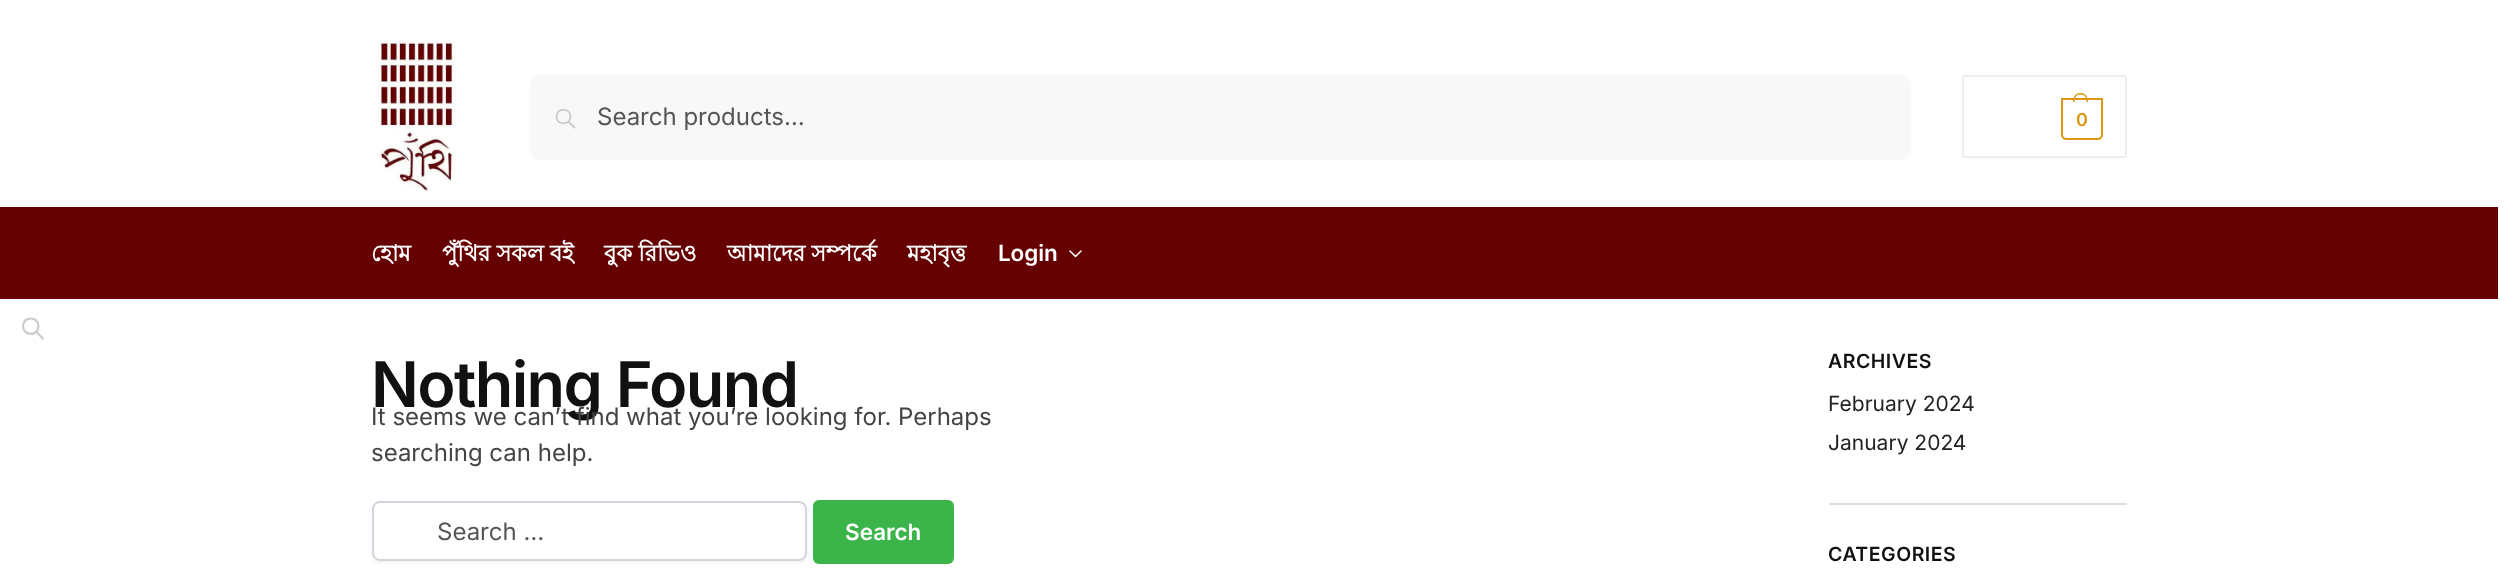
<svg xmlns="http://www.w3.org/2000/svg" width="2520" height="587">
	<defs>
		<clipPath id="clip1"><path d="M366 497H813V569H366ZM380 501H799C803.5 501 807 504.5 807 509V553C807 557.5 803.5 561 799 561H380C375.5 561 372 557.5 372 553V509C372 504.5 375.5 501 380 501Z" clip-rule="evenodd" /></clipPath>
	</defs>
	<rect width="100%" height="100%" fill="#FFFFFF" />
	<image x="378" y="40" width="78" height="152" href="assets/img1.png" />
	<rect x="531" y="77" width="1379" height="82" rx="8" fill="#000000" fill-opacity="0.05" filter="blur(1.5px)" />
	<rect x="531" y="75" width="1379" height="83" rx="8" fill="#F8F8F8" />
	<path d="M574.5 127.5L568.5 121.5M570.5 116.5C570.5 125.5 556.5 125.5 556.5 116.5C556.5 107.5 570.5 107.5 570.5 116.5Z" fill="none" stroke="#CCCCCC" stroke-width="2" stroke-linecap="round" stroke-linejoin="round" />
	<text x="597" y="125" font-family="Inter" font-size="24" fill="#555555">Search products…</text>
	<rect x="1963" y="76" width="163" height="81" rx="2" fill="none" stroke="#EEEEEE" stroke-width="2" />
	<path d="M2062 99H2102V135C2102 137 2100 139 2098 139H2066C2064 139 2062 137 2062 135Z" fill="none" stroke="#DC9814" stroke-width="2" />
	<path d="M2080.5 93C2086 93 2088 97.5 2088 102H2073C2073 97.5 2075 93 2080.5 93ZM2080.5 94.5C2085 94.5 2086.5 98 2086.5 102H2074.5C2074.5 98 2076 94.5 2080.5 94.5Z" fill="#DC9814" fill-rule="evenodd" />
	<text x="2076" y="126" font-family="Inter" font-size="18" font-weight="600" letter-spacing="-1" fill="#DC9814">0</text>
	<rect x="0" y="207" width="2498" height="92" fill="#650201" />
	<g font-family="Lohit Bengali" font-size="22.5" font-weight="700" letter-spacing="-0.1" fill="#FFFFFF">
		<text x="371" y="261">হোম</text>
		<text x="442" y="261">পুঁথির সকল বই</text>
		<text x="604" y="261">বুক রিভিও</text>
		<text x="727" y="261">আমাদের সম্পর্কে</text>
		<text x="907" y="261">মহাবৃত্ত</text>
	</g>
	<text x="998" y="261" font-family="Inter" font-size="22.5" font-weight="600" letter-spacing="-0.1" fill="#FFFFFF">Login</text>
	<path d="M1081 251L1075.5 256.5L1070 251" fill="none" stroke="#FFFFFF" stroke-width="1.5" stroke-linecap="round" stroke-linejoin="round" />
	<text x="371" y="407" font-family="Inter" font-size="63" font-weight="600" letter-spacing="-1.6" fill="#111111">Nothing Found</text>
	<g font-family="Inter" font-size="24" fill="#444444">
		<text x="371" y="425">It seems we can’t find what you’re looking for. Perhaps</text>
		<text x="371" y="461">searching can help.</text>
	</g>
	<path d="M43 338.5L36.5 332M38.5 326C38.5 336.5 23 336.5 23 326C23 316 38.5 316 38.5 326Z" fill="none" stroke="#CCCCCC" stroke-width="2.2" stroke-linecap="round" stroke-linejoin="round" />
	<g clip-path="url(#clip1)">
		<rect x="372" y="503" width="435" height="60" rx="8" fill="#000000" fill-opacity="0.05" filter="blur(1.5px)" />
	</g>
	<rect x="373" y="502" width="433" height="58" rx="7" fill="none" stroke="#D2D6DC" stroke-width="2" />
	<text x="437" y="540" font-family="Inter" font-size="24" fill="#555555">Search …</text>
	<rect x="813" y="500" width="141" height="64" rx="6" fill="#3BB54A" />
	<text x="845" y="540" font-family="Inter" font-size="22.5" font-weight="600" fill="#FFFFFF">Search</text>
	<rect x="1829" y="503" width="298" height="2" fill="#DDDDDD" />
	<text x="1828" y="368" font-family="Inter" font-size="19.5" font-weight="600" letter-spacing="0.5" fill="#111111">ARCHIVES</text>
	<g font-family="Inter" font-size="21" fill="#222222">
		<text x="1828" y="411">February 2024</text>
		<text x="1828" y="450">January 2024</text>
	</g>
	<text x="1828" y="561" font-family="Inter" font-size="19.5" font-weight="600" letter-spacing="0.5" fill="#111111">CATEGORIES</text>
</svg>
